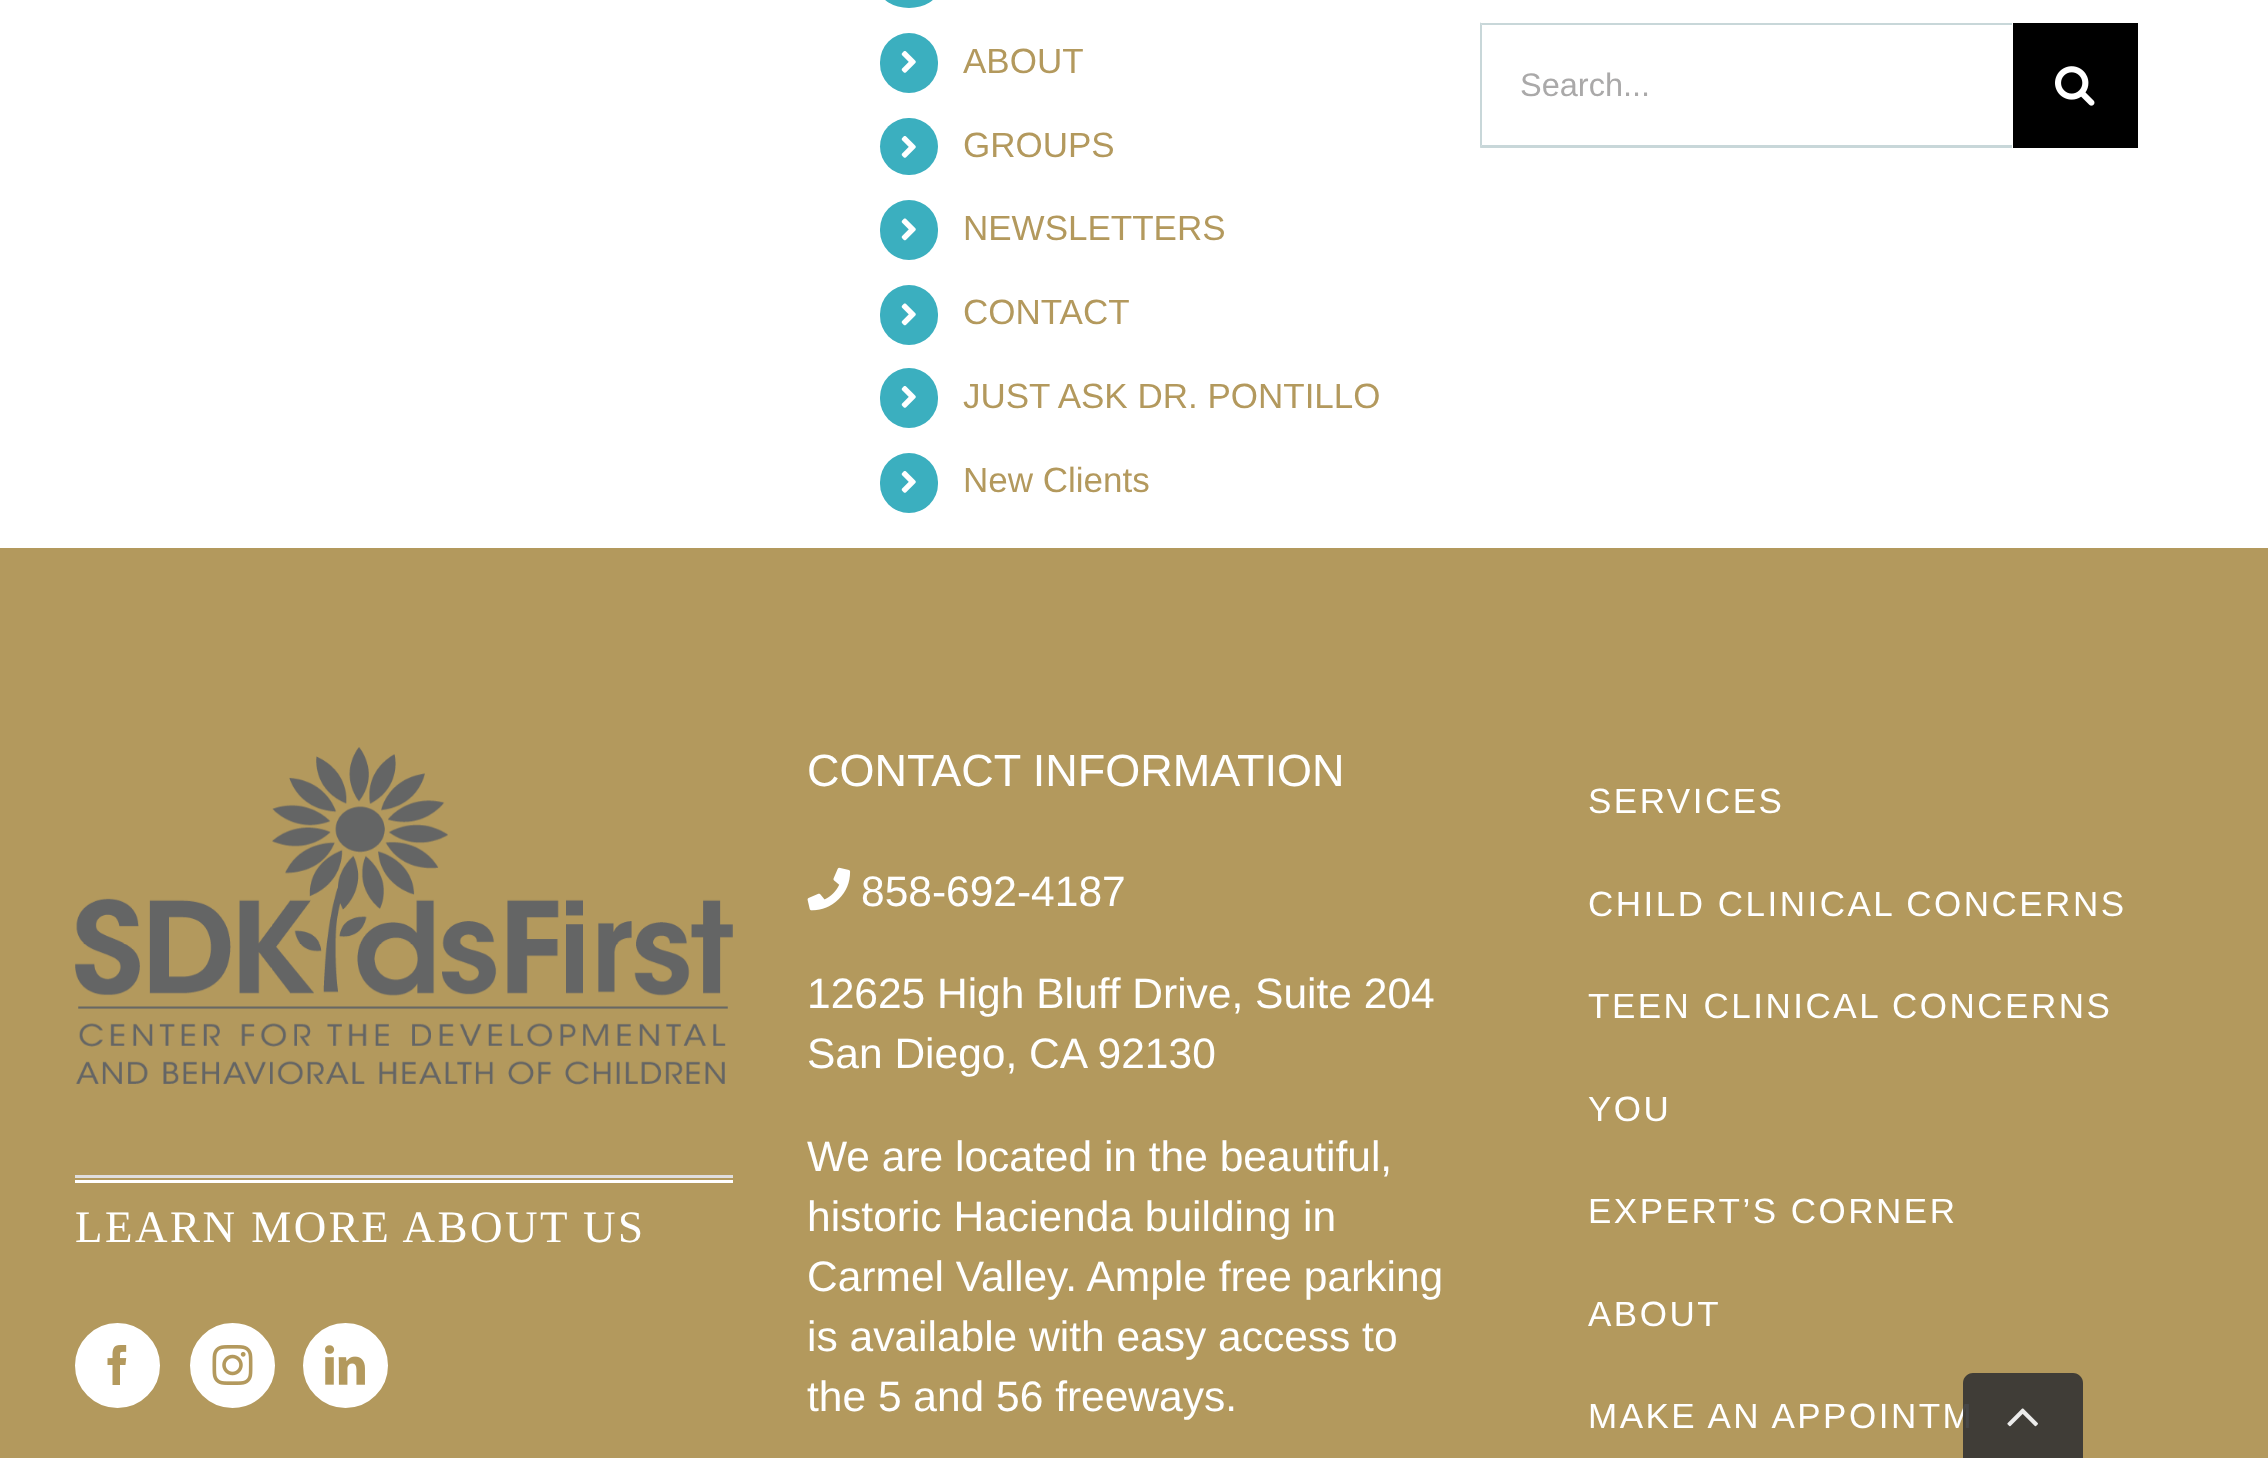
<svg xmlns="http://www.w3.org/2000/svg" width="2268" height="1458">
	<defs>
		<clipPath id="clip1"><rect x="1480" y="23" width="658" height="125" /></clipPath>
	</defs>
	<rect width="100%" height="100%" fill="#FFFFFF" />
	<rect x="880" y="-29" width="58" height="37" rx="29" fill="#3BAFBF" />
	<rect x="880" y="33" width="58" height="60" rx="29" fill="#3BAFBF" />
	<image x="901" y="51" width="15" height="22" href="assets/img1.png" />
	<text x="963" y="73" font-family="Liberation Sans" font-size="35" fill="#B3995D">ABOUT</text>
	<rect x="880" y="118" width="58" height="57" rx="28.5" fill="#3BAFBF" />
	<image x="901" y="136" width="15" height="22" href="assets/img1.png" />
	<text x="963" y="157" font-family="Liberation Sans" font-size="35" fill="#B3995D">GROUPS</text>
	<rect x="880" y="200" width="58" height="60" rx="29" fill="#3BAFBF" />
	<image x="901" y="218" width="15" height="23" href="assets/img2.png" />
	<text x="963" y="240" font-family="Liberation Sans" font-size="35" fill="#B3995D">NEWSLETTERS</text>
	<rect x="880" y="285" width="58" height="60" rx="29" fill="#3BAFBF" />
	<image x="901" y="303" width="15" height="23" href="assets/img2.png" />
	<text x="963" y="324" font-family="Liberation Sans" font-size="35" fill="#B3995D">CONTACT</text>
	<rect x="880" y="368" width="58" height="60" rx="29" fill="#3BAFBF" />
	<image x="901" y="386" width="15" height="22" href="assets/img1.png" />
	<text x="963" y="408" font-family="Liberation Sans" font-size="35" fill="#B3995D">JUST ASK DR. PONTILLO</text>
	<rect x="880" y="453" width="58" height="60" rx="29" fill="#3BAFBF" />
	<image x="901" y="471" width="15" height="22" href="assets/img1.png" />
	<text x="963" y="492" font-family="Liberation Sans" font-size="35" fill="#B3995D">New Clients</text>
	<g clip-path="url(#clip1)">
		<path d="M1480 22H2012V25H1482Z" fill="#C8D7D9" />
	</g>
	<path d="M2012 148H1480L1482 145H2012Z" fill="#C8D7D9" />
	<path d="M1480 148V22L1482 25V145Z" fill="#B7CBCE" fill-opacity="0.77" />
	<text x="1520" y="96" font-family="Liberation Sans" font-size="32.5" fill="#AAA9A9">Search...</text>
	<rect x="2013" y="23" width="125" height="125" fill="#000000" />
	<image x="2055" y="66" width="40" height="40" href="assets/img3.png" />
	<rect x="0" y="548" width="2268" height="910" fill="#B3995D" />
	<image x="75" y="747" width="658" height="338" href="assets/img4.png" />
	<rect x="75" y="1175" width="658" height="3" fill="#E0DEDE" />
	<rect x="75" y="1180" width="658" height="3" fill="#FFFFFF" />
	<text x="75" y="1242" font-family="Liberation Serif" font-size="45" letter-spacing="2.5" fill="#FFFFFF">LEARN MORE ABOUT US</text>
	<circle cx="117.5" cy="1365.5" r="41" fill="#FFFFFF" stroke="#FFFFFF" stroke-width="3" />
	<image x="107" y="1345" width="20" height="40" href="assets/img5.png" />
	<circle cx="232.5" cy="1365.5" r="41" fill="#FFFFFF" stroke="#FFFFFF" stroke-width="3" />
	<image x="212" y="1345" width="41" height="40" href="assets/img6.png" />
	<circle cx="345.5" cy="1365.5" r="41" fill="#FFFFFF" stroke="#FFFFFF" stroke-width="3" />
	<image x="325" y="1345" width="40" height="40" href="assets/img7.png" />
	<text x="807" y="786" font-family="Liberation Sans" font-size="45" fill="#FFFFFF">CONTACT INFORMATION</text>
	<image x="807" y="867" width="44" height="44" href="assets/img8.png" />
	<g font-family="Liberation Sans" font-size="42.5" fill="#FFFFFF">
		<text x="861" y="906">858-692-4187</text>
		<text x="807" y="1008">12625 High Bluff Drive, Suite 204</text>
		<text x="807" y="1068">San Diego, CA 92130</text>
		<text x="807" y="1171">We are located in the beautiful,</text>
		<text x="807" y="1231">historic Hacienda building in</text>
		<text x="807" y="1291">Carmel Valley. Ample free parking</text>
		<text x="807" y="1351">is available with easy access to</text>
		<text x="807" y="1411">the 5 and 56 freeways.</text>
	</g>
	<g font-family="Liberation Sans" font-size="35" letter-spacing="2.5" fill="#FFFFFF">
		<text x="1588" y="813">SERVICES</text>
		<text x="1588" y="916">CHILD CLINICAL CONCERNS</text>
		<text x="1588" y="1018">TEEN CLINICAL CONCERNS</text>
		<text x="1588" y="1121">YOU</text>
		<text x="1588" y="1223">EXPERT’S CORNER</text>
		<text x="1588" y="1326">ABOUT</text>
		<text x="1588" y="1428">MAKE AN APPOINTM</text>
	</g>
	<path d="M1973 1373H2073C2078.5 1373 2083 1377.5 2083 1383V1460H1963V1383C1963 1377.5 1967.5 1373 1973 1373Z" fill="#333333" fill-opacity="0.9" />
	<image x="2007" y="1408" width="31" height="19" href="assets/img9.png" />
</svg>
